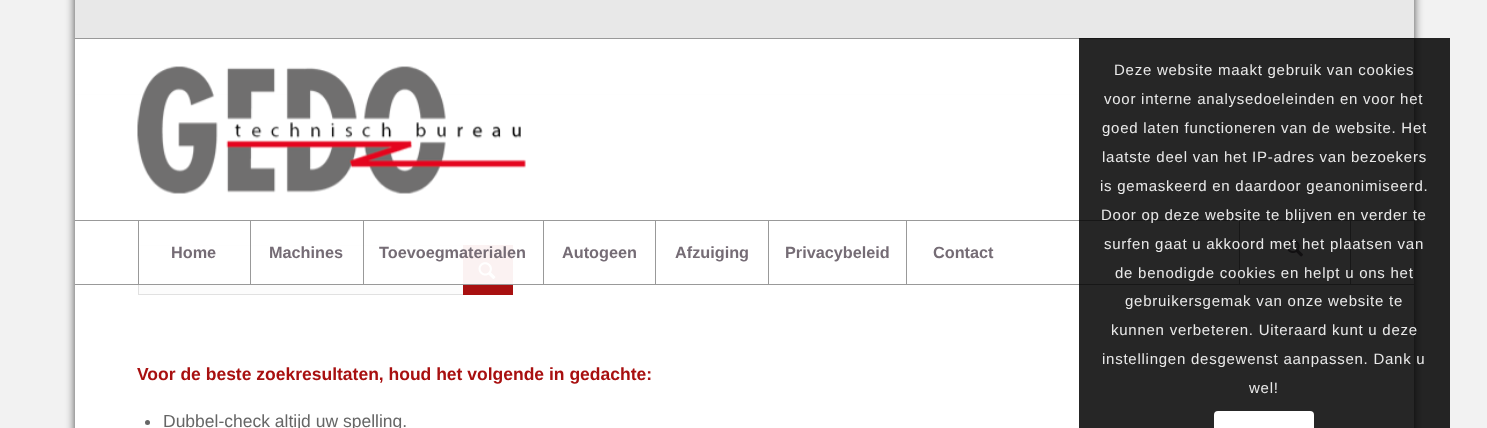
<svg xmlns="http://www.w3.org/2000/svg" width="1487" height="428">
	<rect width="100%" height="100%" fill="#F2F2F2" />
	<rect x="75" y="-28" width="1339" height="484" rx="13" fill="#494949" filter="blur(5px)" />
	<rect x="75" y="0" width="1339" height="38" fill="#E8E8E8" />
	<rect x="75" y="38" width="1339" height="1" fill="#999999" />
	<rect x="75" y="39" width="1339" height="389" fill="#FFFFFF" />
	<rect x="75" y="94" width="1339" height="1" fill="#E1E1E1" />
	<rect x="139" y="246" width="324" height="48" fill="#FCFCFC" />
	<rect x="138.5" y="245.5" width="374" height="49" fill="none" stroke="#E1E1E1" />
	<rect x="463" y="245" width="50" height="50" fill="#A81010" />
	<image x="478" y="262" width="18" height="17" href="assets/img3.png" />
	<rect x="75" y="94" width="1339" height="190" fill="#FFFFFF" fill-opacity="0.95" />
	<rect x="75" y="284" width="1339" height="1" fill="#999999" />
	<image x="137" y="66" width="389" height="128" href="assets/img1.png" />
	<rect x="75" y="220" width="1339" height="1" fill="#999999" />
	<rect x="138" y="221" width="1" height="63" fill="#999999" />
	<text x="171" y="258" font-family="Liberation Sans" font-size="16.25" font-weight="700" fill="#756C75">Home</text>
	<rect x="250" y="221" width="1" height="63" fill="#999999" />
	<text x="269" y="258" font-family="Liberation Sans" font-size="16.25" font-weight="700" fill="#756C75">Machines</text>
	<rect x="363" y="221" width="1" height="63" fill="#999999" />
	<text x="379" y="258" font-family="Liberation Sans" font-size="16.25" font-weight="700" fill="#756C75">Toevoegmaterialen</text>
	<rect x="543" y="221" width="1" height="63" fill="#999999" />
	<text x="562" y="258" font-family="Liberation Sans" font-size="16.25" font-weight="700" fill="#756C75">Autogeen</text>
	<rect x="655" y="221" width="1" height="63" fill="#999999" />
	<text x="675" y="258" font-family="Liberation Sans" font-size="16.25" font-weight="700" fill="#756C75">Afzuiging</text>
	<rect x="768" y="221" width="1" height="63" fill="#999999" />
	<text x="785" y="258" font-family="Liberation Sans" font-size="16.25" font-weight="700" fill="#756C75">Privacybeleid</text>
	<rect x="906" y="221" width="1" height="63" fill="#999999" />
	<text x="933" y="258" font-family="Liberation Sans" font-size="16.25" font-weight="700" fill="#756C75">Contact</text>
	<rect x="1350" y="221" width="1" height="63" fill="#999999" />
	<rect x="1239" y="221" width="1" height="63" fill="#999999" />
	<image x="1286" y="239" width="17" height="18" href="assets/img2.png" />
	<text x="137" y="380" font-family="Liberation Sans" font-size="17.5" font-weight="700" fill="#A81010">Voor de beste zoekresultaten, houd het volgende in gedachte:</text>
	<circle cx="147.5" cy="422.5" r="2.5" fill="#666666" />
	<text x="163" y="427" font-family="Liberation Sans" font-size="17.5" fill="#666666">Dubbel-check altijd uw spelling.</text>
	<rect x="1079" y="38" width="371" height="390" fill="#000000" fill-opacity="0.85" />
	<g font-family="Liberation Sans" font-size="15" letter-spacing="0.75" fill="#E9E9E9">
		<text x="1114" y="75">Deze website maakt gebruik van cookies</text>
		<text x="1104" y="104">voor interne analysedoeleinden en voor het</text>
		<text x="1102" y="133">goed laten functioneren van de website. Het</text>
		<text x="1102" y="162">laatste deel van het IP-adres van bezoekers</text>
		<text x="1100" y="191">is gemaskeerd en daardoor geanonimiseerd.</text>
		<text x="1101" y="220">Door op deze website te blijven en verder te</text>
		<text x="1104" y="249">surfen gaat u akkoord met het plaatsen van</text>
		<text x="1115" y="278">de benodigde cookies en helpt u ons het</text>
		<text x="1125" y="306">gebruikersgemak van onze website te</text>
		<text x="1111" y="335">kunnen verbeteren. Uiteraard kunt u deze</text>
		<text x="1102" y="364">instellingen desgewenst aanpassen. Dank u</text>
		<text x="1249" y="393">wel!</text>
	</g>
	<rect x="1214" y="411" width="100" height="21" rx="4" fill="#FFFFFF" />
</svg>
